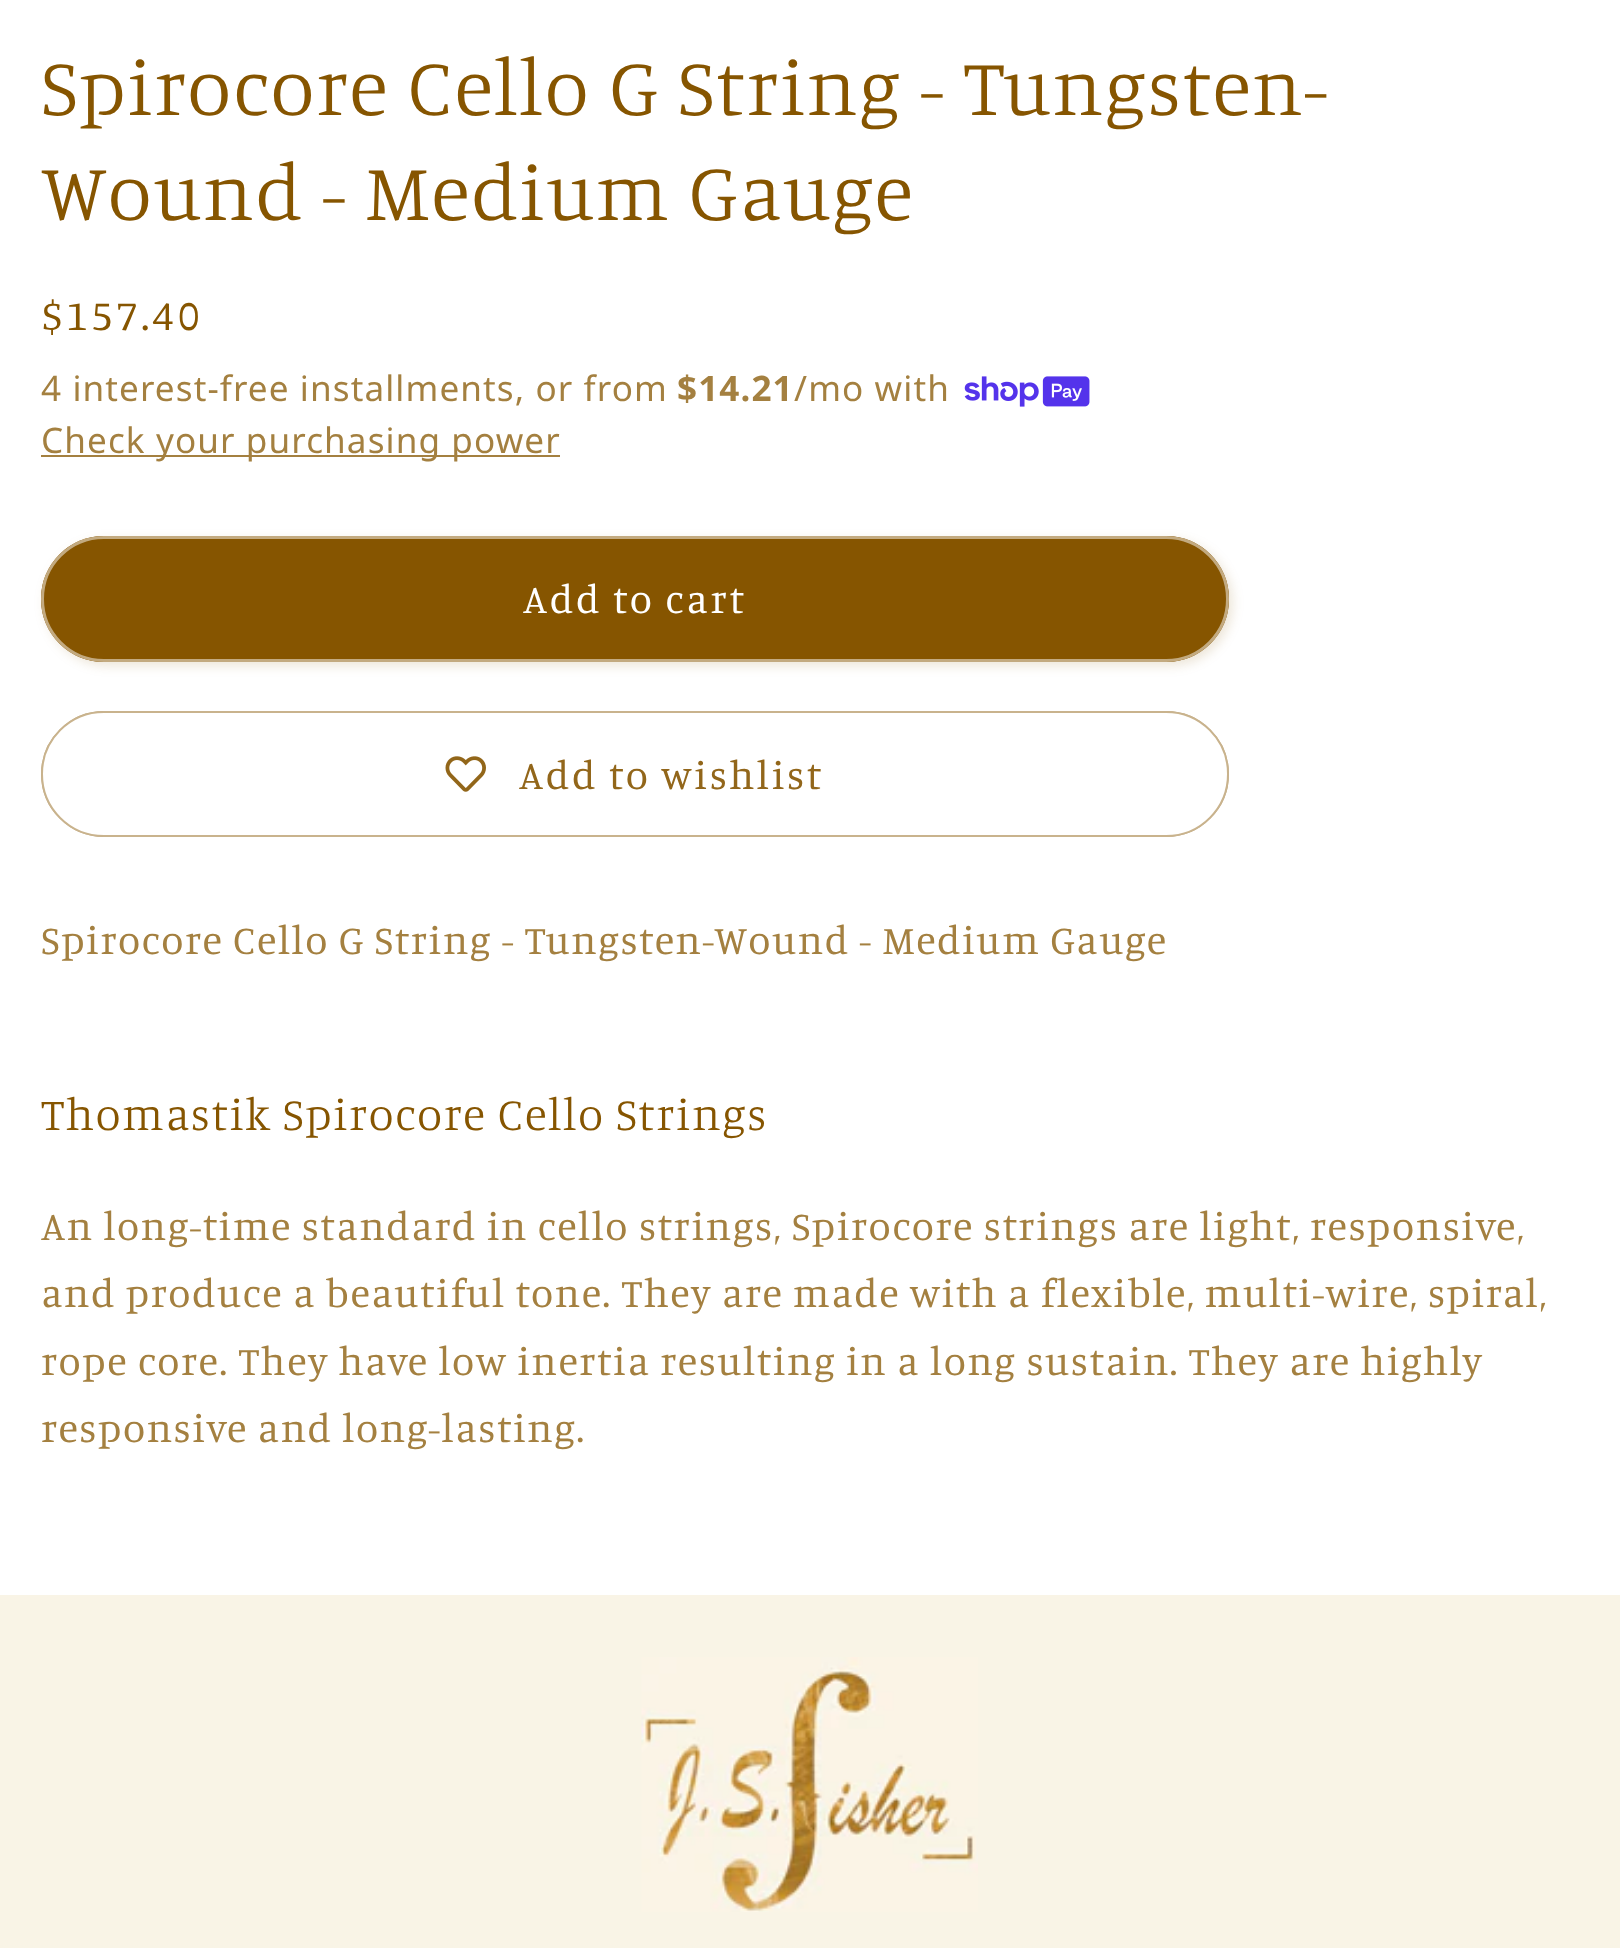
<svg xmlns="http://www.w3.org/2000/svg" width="1620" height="1948">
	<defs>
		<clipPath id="clip1"><rect x="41" y="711" width="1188" height="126" rx="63" /></clipPath>
		<clipPath id="clip2"><path d="M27 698H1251V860H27ZM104 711H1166C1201 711 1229 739 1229 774C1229 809 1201 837 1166 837H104C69 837 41 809 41 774C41 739 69 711 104 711Z" clip-rule="evenodd" /></clipPath>
	</defs>
	<rect width="100%" height="100%" fill="#FFFFFF" />
	<g font-family="Manuale" font-size="81" font-weight="300" letter-spacing="1.62" fill="#865500">
		<text x="41" y="115">Spirocore Cello G String - Tungsten-</text>
		<text x="41" y="220">Wound - Medium Gauge</text>
	</g>
	<text x="41" y="330" font-family="Manuale" font-size="43" letter-spacing="3.5" fill="#865500">$157.40</text>
	<text x="41" y="401" font-family="Noto Sans" font-size="35.1" letter-spacing="1.1" fill="#A48040">4 interest-free installments, or from</text>
	<text x="677" y="401" font-family="Noto Sans" font-size="35.1" font-weight="700" letter-spacing="1.1" fill="#A48040">$14.21</text>
	<text x="794" y="401" font-family="Noto Sans" font-size="35.1" letter-spacing="1.1" fill="#A48040">/mo with</text>
	<image x="964" y="376" width="126" height="31" href="assets/img1.png" />
	<rect x="41" y="455" width="519" height="2" fill="#A48040" />
	<text x="41" y="453" font-family="Noto Sans" font-size="35.1" letter-spacing="1.1" fill="#A48040">Check your purchasing power</text>
	<rect x="45" y="540" width="1188" height="126" rx="63" fill="#865500" fill-opacity="0.15" filter="blur(5.5px)" />
	<rect x="41" y="536" width="1188" height="126" rx="63" fill="#865500" />
	<rect x="42" y="537" width="1186" height="124" rx="62" fill="none" stroke="#865500" stroke-width="2" />
	<rect x="42.5" y="537.5" width="1185" height="123" rx="61.5" fill="none" stroke="#FFFFFF" stroke-opacity="0.5" stroke-width="3" />
	<text x="523" y="613" font-family="Manuale" font-size="40.5" letter-spacing="2.75" fill="#FFFFFF">Add to cart</text>
	<g clip-path="url(#clip1)">
		<g clip-path="url(#clip2)">
			<rect x="45" y="716" width="1188" height="126" rx="63" fill="#92661A" fill-opacity="0.15" filter="blur(5.5px)" />
		</g>
	</g>
	<image x="445" y="756" width="41" height="36" href="assets/img2.png" />
	<rect x="42" y="712" width="1186" height="124" rx="62" fill="none" stroke="#92661A" stroke-width="2" />
	<rect x="42.5" y="712.5" width="1185" height="123" rx="61.5" fill="none" stroke="#FFFFFF" stroke-opacity="0.5" stroke-width="3" />
	<text x="519" y="789" font-family="Manuale" font-size="40.5" letter-spacing="2.75" fill="#92661A">Add to wishlist</text>
	<text x="41" y="954" font-family="Manuale" font-size="40.5" letter-spacing="1.62" fill="#A48040">Spirocore Cello G String - Tungsten-Wound - Medium Gauge</text>
	<text x="41" y="1130" font-family="Manuale" font-size="45.9" font-weight="300" letter-spacing="1.62" fill="#865500">Thomastik Spirocore Cello Strings</text>
	<g font-family="Manuale" font-size="40.5" letter-spacing="1.62" fill="#A48040">
		<text x="41" y="1240">An long-time standard in cello strings, Spirocore strings are light, responsive,</text>
		<text x="41" y="1307">and produce a beautiful tone. They are made with a flexible, multi-wire, spiral,</text>
		<text x="41" y="1375">rope core. They have low inertia resulting in a long sustain. They are highly</text>
		<text x="41" y="1442">responsive and long-lasting.</text>
	</g>
	<rect x="0" y="1595" width="1620" height="353" fill="#F9F4E6" />
	<image x="641" y="1657" width="337" height="255" href="assets/img3.png" />
</svg>
